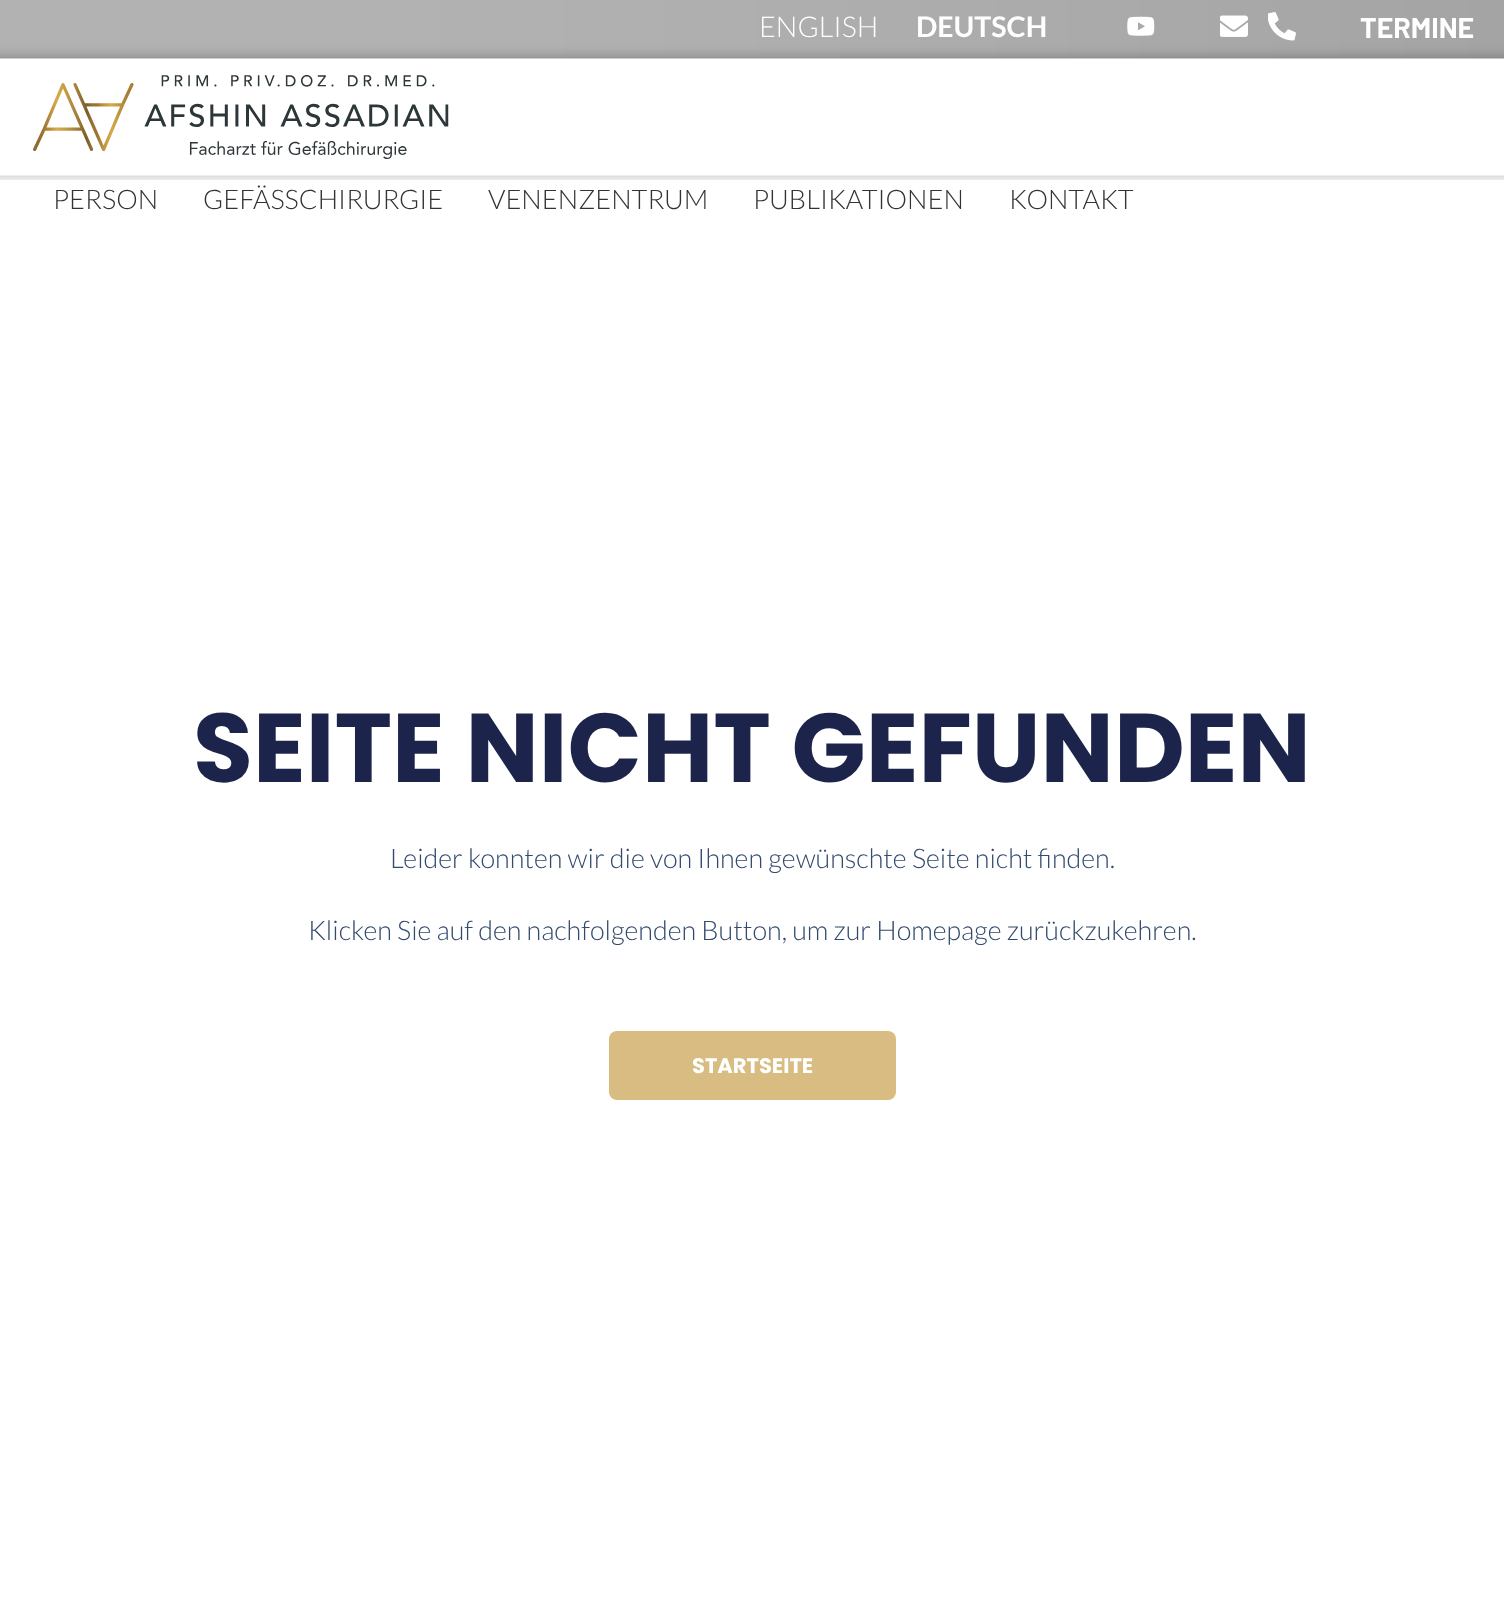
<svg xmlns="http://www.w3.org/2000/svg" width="1504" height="1609">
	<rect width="100%" height="100%" fill="#FFFFFF" />
	<image x="0" y="0" width="1504" height="180" href="assets/img1.png" />
	<text x="759" y="37" font-family="Lato" font-size="28.5" font-weight="300" fill="#FFFFFF">ENGLISH</text>
	<text x="916" y="37" font-family="Lato" font-size="28.5" font-weight="700" fill="#FFFFFF">DEUTSCH</text>
	<image x="1127" y="16" width="28" height="20" href="assets/img2.png" />
	<image x="1220" y="15" width="28" height="22" href="assets/img3.png" />
	<image x="1268" y="12" width="28" height="29" href="assets/img4.png" />
	<text x="1360" y="38" font-family="Barlow" font-size="28.5" font-weight="700" fill="#FFFFFF">TERMINE</text>
	<image x="33" y="75" width="416" height="84" href="assets/img5.png" />
	<g font-family="Lato" font-size="27" font-weight="300" fill="#333333">
		<text x="53" y="209">PERSON</text>
		<text x="203" y="209">GEFÄSSCHIRURGIE</text>
		<text x="488" y="209">VENENZENTRUM</text>
		<text x="753" y="209">PUBLIKATIONEN</text>
		<text x="1009" y="209">KONTAKT</text>
	</g>
	<text x="193" y="782" font-family="Poppins" font-size="97.5" font-weight="700" fill="#1C244B">SEITE NICHT GEFUNDEN</text>
	<g font-family="Lato" font-size="27" font-weight="300" fill="#324A6D">
		<text x="390" y="868">Leider konnten wir die von Ihnen gewünschte Seite nicht finden.</text>
		<text x="308" y="940">Klicken Sie auf den nachfolgenden Button, um zur Homepage zurückzukehren.</text>
	</g>
	<rect x="609" y="1031" width="287" height="69" rx="8" fill="#D8BC81" />
	<text x="692" y="1073" font-family="Poppins" font-size="21" font-weight="700" fill="#FFFFFF">STARTSEITE</text>
</svg>
